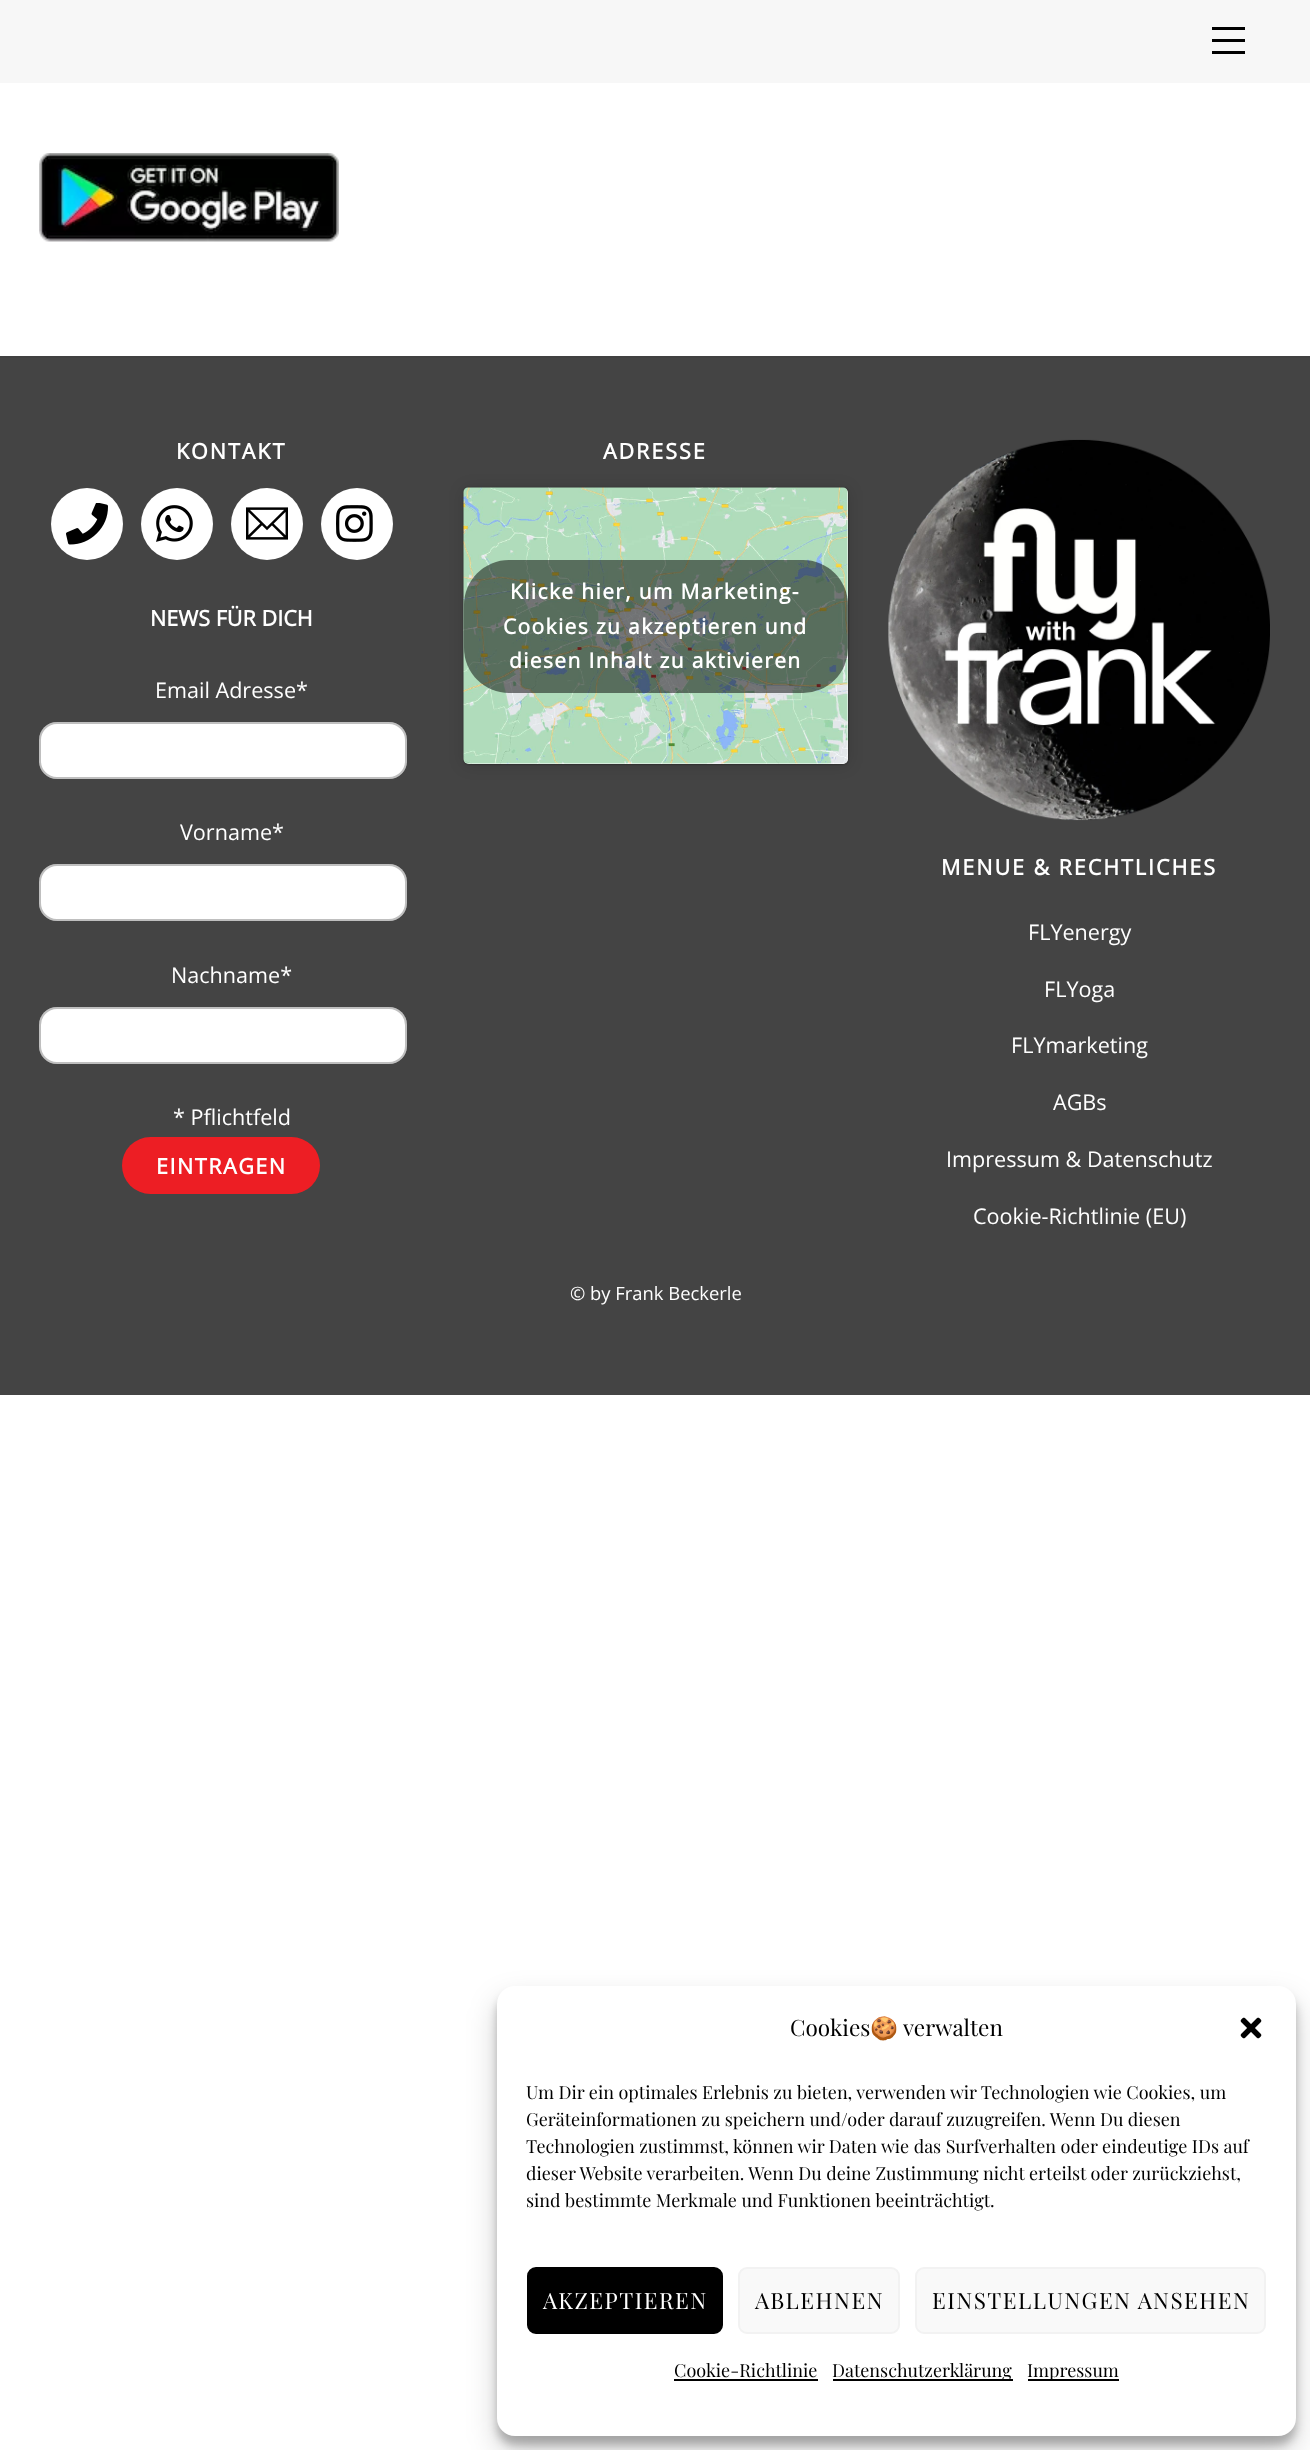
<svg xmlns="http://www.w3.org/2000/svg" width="1310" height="2450">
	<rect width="100%" height="100%" fill="#FFFFFF" />
	<rect x="0" y="0" width="1310" height="83" fill="#F7F7F7" />
	<rect x="1212" y="51" width="33" height="3" fill="#000000" />
	<rect x="1212" y="27" width="33" height="3" fill="#000000" />
	<rect x="1212" y="39" width="33" height="3" fill="#000000" />
	<image x="39" y="153" width="300" height="89" href="assets/img1.png" />
	<rect x="0" y="358" width="1310" height="1037" fill="#444444" />
	<rect x="0" y="356" width="1310" height="2" fill="#414141" />
	<text x="176" y="459" font-family="Open Sans" font-size="21.6" font-weight="700" letter-spacing="1.9" fill="#FFFFFF">KONTAKT</text>
	<circle cx="87" cy="524" r="36" fill="#FFFFFF" />
	<image x="66" y="503" width="42" height="42" href="assets/img2.png" />
	<circle cx="177" cy="524" r="36" fill="#FFFFFF" />
	<image x="156" y="505" width="37" height="37" href="assets/img3.png" />
	<circle cx="267" cy="524" r="36" fill="#FFFFFF" />
	<image x="246" y="507" width="42" height="33" href="assets/img4.png" />
	<circle cx="357" cy="524" r="36" fill="#FFFFFF" />
	<image x="336" y="505" width="37" height="37" href="assets/img5.png" />
	<text x="150" y="626" font-family="Open Sans" font-size="21.6" font-weight="700" fill="#FFFFFF">NEWS FÜR DICH</text>
	<text x="155" y="698" font-family="Open Sans" font-size="21.6" fill="#FFFFFF">Email Adresse*</text>
	<rect x="39" y="722" width="368" height="57" rx="18" fill="#FFFFFF" />
	<rect x="40" y="723" width="366" height="55" rx="17" fill="none" stroke="#000000" stroke-opacity="0.25" stroke-width="2" />
	<text x="180" y="840" font-family="Open Sans" font-size="21.6" fill="#FFFFFF">Vorname*</text>
	<rect x="39" y="864" width="368" height="57" rx="18" fill="#FFFFFF" />
	<rect x="40" y="865" width="366" height="55" rx="17" fill="none" stroke="#000000" stroke-opacity="0.25" stroke-width="2" />
	<text x="171" y="983" font-family="Open Sans" font-size="21.6" fill="#FFFFFF">Nachname*</text>
	<rect x="39" y="1007" width="368" height="57" rx="18" fill="#FFFFFF" />
	<rect x="40" y="1008" width="366" height="55" rx="17" fill="none" stroke="#000000" stroke-opacity="0.25" stroke-width="2" />
	<text x="173" y="1125" font-family="Open Sans" font-size="21.6" fill="#FFFFFF">* Pflichtfeld</text>
	<rect x="122" y="1137" width="198" height="57" rx="28.5" fill="#ED1E24" />
	<text x="156" y="1174" font-family="Open Sans" font-size="21.6" font-weight="700" letter-spacing="1.5" fill="#FFFFFF">EINTRAGEN</text>
	<text x="603" y="459" font-family="Open Sans" font-size="21.6" font-weight="700" letter-spacing="1.9" fill="#FFFFFF">ADRESSE</text>
	<rect x="464" y="489" width="384" height="276" rx="5" fill="#000000" fill-opacity="0.15" filter="blur(7.5px)" />
	<rect x="464" y="488" width="384" height="276" rx="5" fill="#000000" fill-opacity="0.5" filter="blur(1px)" />
	<rect x="464" y="488" width="384" height="276" rx="5" fill="#FFFFFF" />
	<image x="463" y="487" width="385" height="277" href="assets/img6.png" />
	<rect x="464" y="560" width="384" height="133" rx="45" fill="#000000" fill-opacity="0.5" />
	<g font-family="Open Sans" font-size="21" font-weight="700" letter-spacing="1.35" fill="#FFFFFF">
		<text x="510" y="599">Klicke hier, um Marketing-</text>
		<text x="503" y="634">Cookies zu akzeptieren und</text>
		<text x="509" y="668">diesen Inhalt zu aktivieren</text>
	</g>
	<image x="888" y="439" width="382" height="382" href="assets/img7.png" />
	<text x="941" y="875" font-family="Open Sans" font-size="21.6" font-weight="700" letter-spacing="1.9" fill="#FFFFFF">MENUE &amp; RECHTLICHES</text>
	<g font-family="Open Sans" font-size="21.6" fill="#FFFFFF">
		<text x="1028" y="940">FLYenergy</text>
		<text x="1044" y="997">FLYoga</text>
		<text x="1011" y="1053">FLYmarketing</text>
		<text x="1053" y="1110">AGBs</text>
		<text x="946" y="1167">Impressum &amp; Datenschutz</text>
		<text x="973" y="1224">Cookie-Richtlinie (EU)</text>
	</g>
	<text x="570" y="1300" font-family="Open Sans" font-size="18.4" fill="#FFFFFF">© by Frank Beckerle</text>
	<rect x="497" y="1995" width="799" height="450" rx="18" fill="#000000" fill-opacity="0.23" filter="blur(4.5px)" />
	<rect x="497" y="2001" width="799" height="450" rx="18" fill="#000000" fill-opacity="0.19" filter="blur(15px)" />
	<rect x="497" y="1986" width="799" height="450" rx="18" fill="#FFFFFF" />
	<text x="790" y="2036" font-family="Playfair Display" font-size="22.5" fill="#000000">Cookies</text>
	<text x="870" y="2036" font-family="Noto Color Emoji" font-size="22.5" fill="#000000">🍪</text>
	<text x="903" y="2036" font-family="Playfair Display" font-size="22.5" fill="#000000">verwalten</text>
	<image x="1240" y="2017" width="22" height="22" href="assets/img8.png" />
	<g font-family="Playfair Display" font-size="18" fill="#000000">
		<text x="526" y="2099">Um Dir ein optimales Erlebnis zu bieten, verwenden wir Technologien wie Cookies, um</text>
		<text x="526" y="2126">Geräteinformationen zu speichern und/oder darauf zuzugreifen. Wenn Du diesen</text>
		<text x="526" y="2153">Technologien zustimmst, können wir Daten wie das Surfverhalten oder eindeutige IDs auf</text>
		<text x="526" y="2180">dieser Website verarbeiten. Wenn Du deine Zustimmung nicht erteilst oder zurückziehst,</text>
		<text x="526" y="2207">sind bestimmte Merkmale und Funktionen beeinträchtigt.</text>
	</g>
	<rect x="528" y="2268" width="194" height="65" rx="8" fill="#000000" stroke="#000000" stroke-width="2" />
	<text x="543" y="2309" font-family="Playfair Display" font-size="22.5" letter-spacing="1.5" fill="#FFFFFF">AKZEPTIEREN</text>
	<rect x="739" y="2268" width="160" height="65" rx="8" fill="#F9F9F9" stroke="#F2F2F2" stroke-width="2" />
	<text x="755" y="2309" font-family="Playfair Display" font-size="22.5" letter-spacing="1.5" fill="#000000">ABLEHNEN</text>
	<rect x="916" y="2268" width="349" height="65" rx="8" fill="#F9F9F9" stroke="#F2F2F2" stroke-width="2" />
	<text x="932" y="2309" font-family="Playfair Display" font-size="22.5" letter-spacing="1.5" fill="#000000">EINSTELLUNGEN ANSEHEN</text>
	<text x="674" y="2377" font-family="Playfair Display" font-size="18" fill="#000000">Cookie-Richtlinie</text>
	<rect x="674" y="2379" width="144" height="2" fill="#000000" />
	<rect x="833" y="2379" width="180" height="2" fill="#000000" />
	<text x="832" y="2377" font-family="Playfair Display" font-size="18" fill="#000000">Datenschutzerklärung</text>
	<rect x="1028" y="2379" width="91" height="2" fill="#000000" />
	<text x="1027" y="2377" font-family="Playfair Display" font-size="18" fill="#000000">Impressum</text>
</svg>
